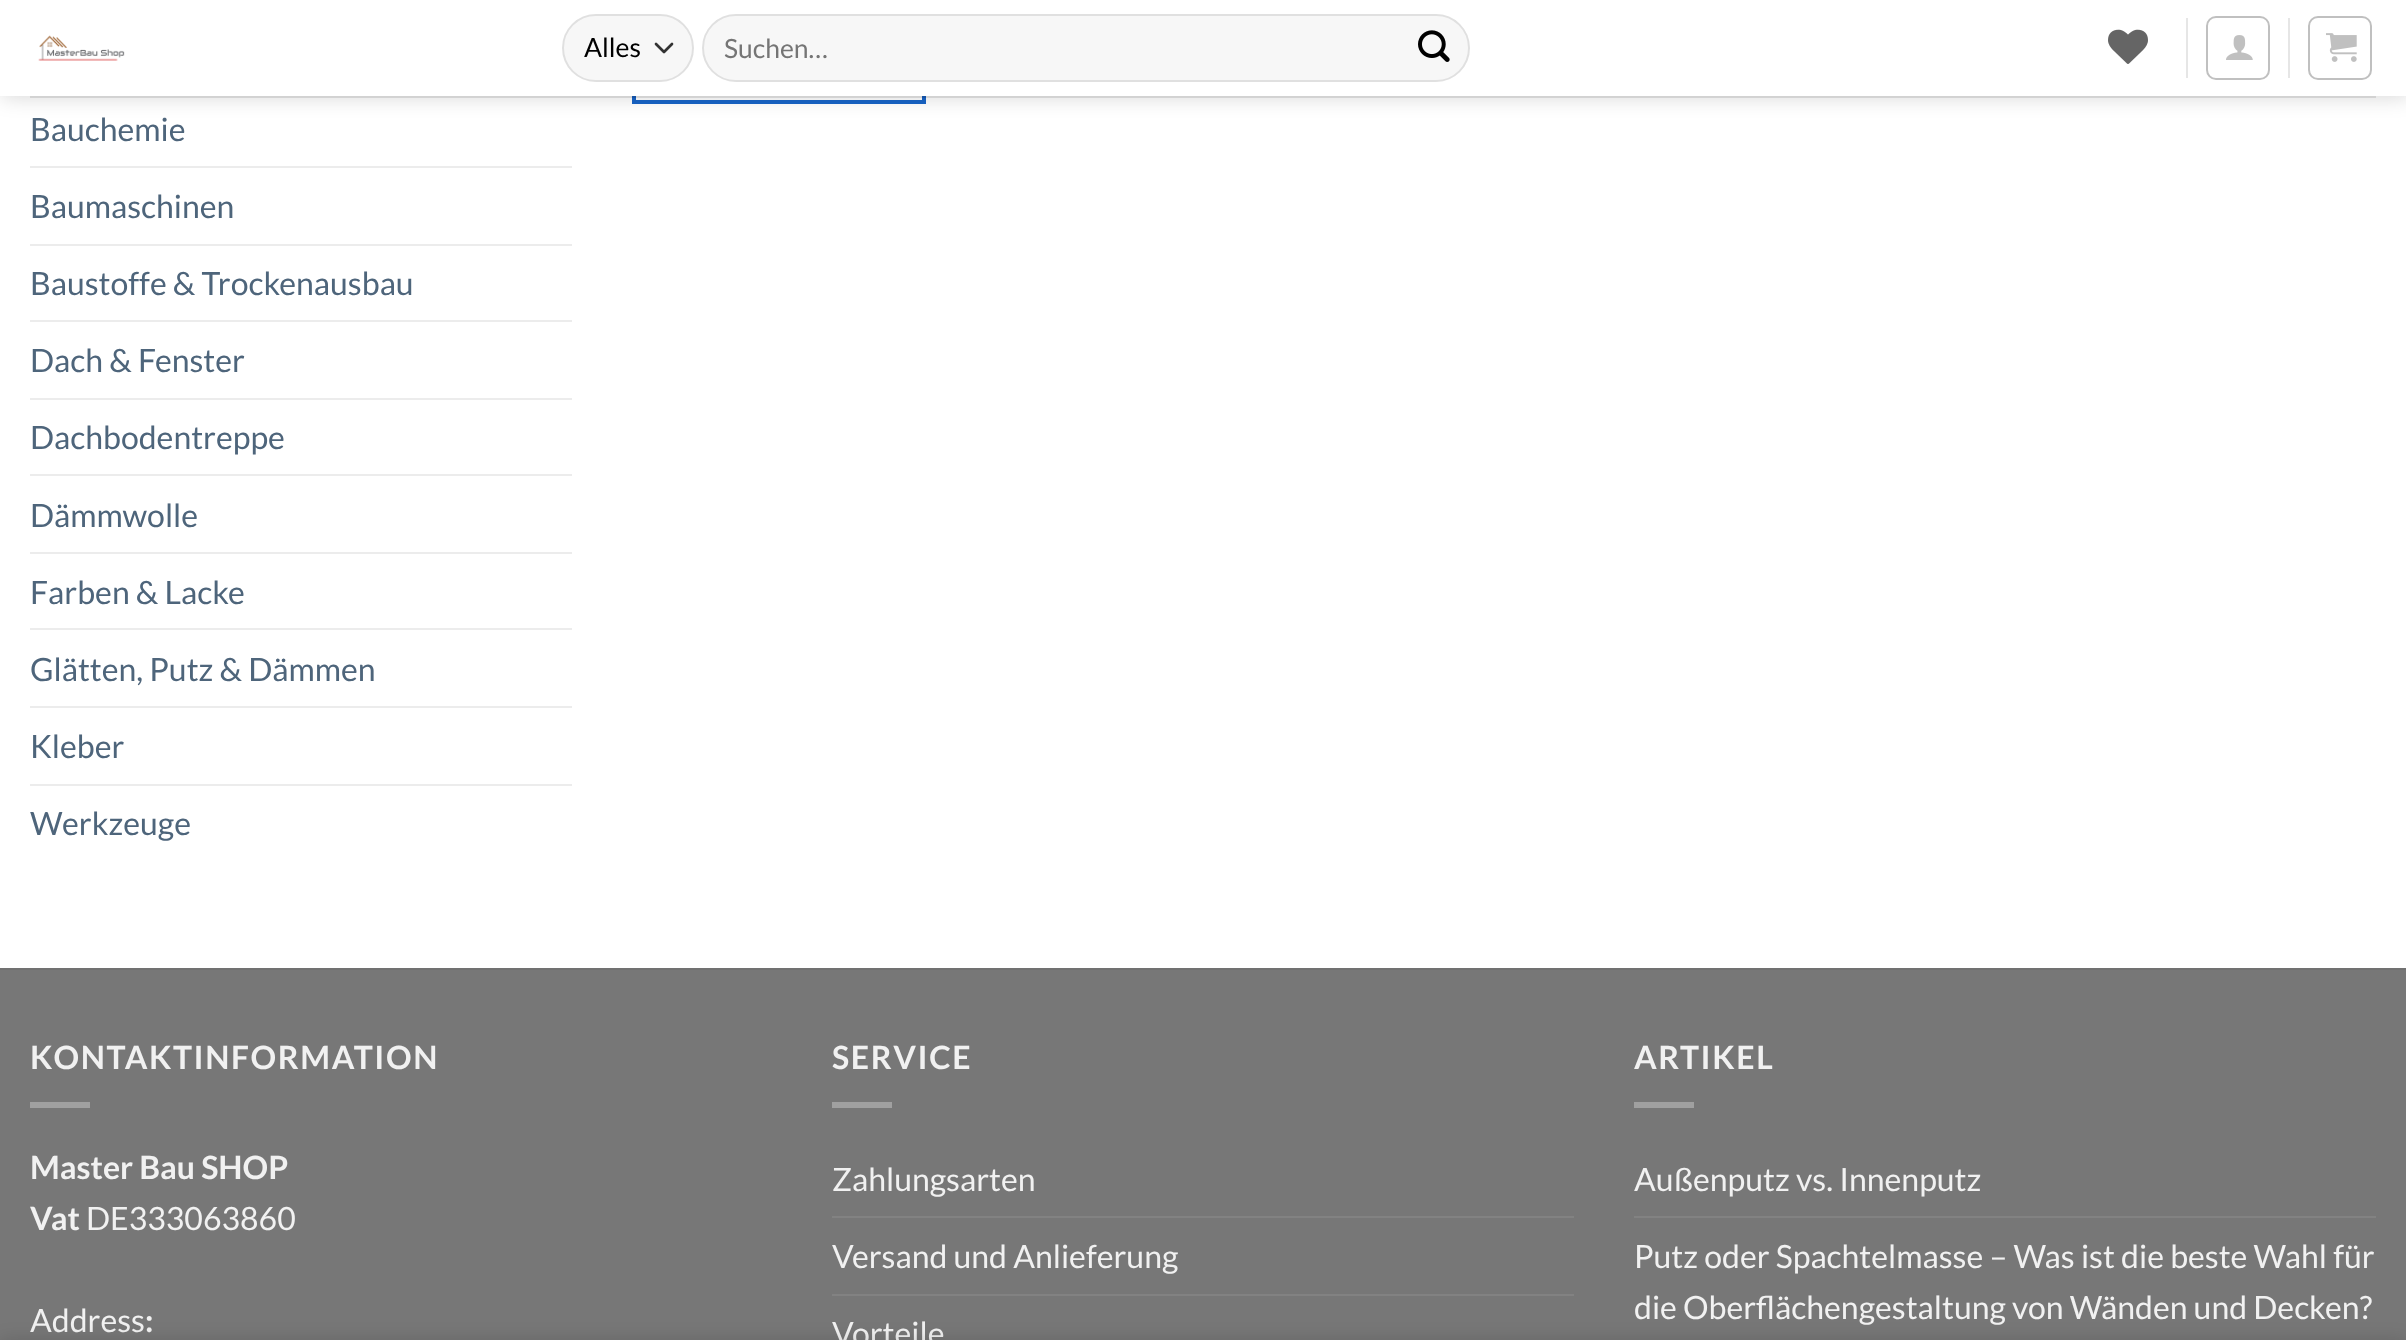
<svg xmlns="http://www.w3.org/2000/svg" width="2406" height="1340">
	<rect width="100%" height="100%" fill="#FFFFFF" />
	<rect x="634" y="-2" width="290" height="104" fill="none" stroke="#1864C7" stroke-width="4" />
	<rect x="2" y="2" width="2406" height="96" fill="#000000" fill-opacity="0.15" filter="blur(10px)" />
	<rect x="0" y="0" width="2406" height="96" fill="#FFFFFF" />
	<image x="38" y="35" width="87" height="26" href="assets/img1.png" />
	<rect x="562" y="14" width="132" height="68" rx="34" fill="#F7F7F7" />
	<path d="M656 44L664 52L672 44" fill="none" stroke="#333333" stroke-width="2.7" stroke-linecap="round" stroke-linejoin="round" />
	<rect x="563" y="15" width="130" height="66" rx="33" fill="none" stroke="#000000" stroke-opacity="0.09" stroke-width="2" />
	<text x="584" y="57" font-family="Lato" font-size="26.5" fill="#000000">Alles</text>
	<rect x="702" y="14" width="768" height="68" rx="34" fill="#F7F7F7" />
	<rect x="703" y="15" width="766" height="66" rx="33" fill="none" stroke="#000000" stroke-opacity="0.09" stroke-width="2" />
	<text x="724" y="58" font-family="Lato" font-size="26.5" fill="#757575">Suchen…</text>
	<image x="1418" y="30" width="32" height="32" href="assets/img2.png" />
	<image x="2108" y="29" width="40" height="35" href="assets/img3.png" />
	<rect x="2186" y="18" width="2" height="60" fill="#E6E6E6" />
	<rect x="2207" y="17" width="62" height="62" rx="9" fill="none" stroke="#C0C0C0" stroke-width="2" />
	<image x="2226" y="35" width="27" height="25" href="assets/img4.png" />
	<rect x="2288" y="18" width="2" height="60" fill="#E6E6E6" />
	<rect x="2309" y="17" width="62" height="62" rx="9" fill="none" stroke="#C0C0C0" stroke-width="2" />
	<image x="2326" y="33" width="31" height="29" href="assets/img5.png" />
	<rect x="30" y="96" width="2346" height="2" fill="#000000" fill-opacity="0.1" />
	<text x="30" y="141" font-family="Lato" font-size="32" fill="#4E657B">Bauchemie</text>
	<rect x="30" y="166" width="542" height="2" fill="#ECECEC" />
	<text x="30" y="218" font-family="Lato" font-size="32" fill="#4E657B">Baumaschinen</text>
	<rect x="30" y="244" width="542" height="2" fill="#ECECEC" />
	<text x="30" y="295" font-family="Lato" font-size="32" fill="#4E657B">Baustoffe &amp; Trockenausbau</text>
	<rect x="30" y="320" width="542" height="2" fill="#ECECEC" />
	<text x="30" y="372" font-family="Lato" font-size="32" fill="#4E657B">Dach &amp; Fenster</text>
	<rect x="30" y="398" width="542" height="2" fill="#ECECEC" />
	<text x="30" y="449" font-family="Lato" font-size="32" fill="#4E657B">Dachbodentreppe</text>
	<rect x="30" y="474" width="542" height="2" fill="#ECECEC" />
	<text x="30" y="527" font-family="Lato" font-size="32" fill="#4E657B">Dämmwolle</text>
	<rect x="30" y="552" width="542" height="2" fill="#ECECEC" />
	<text x="30" y="604" font-family="Lato" font-size="32" fill="#4E657B">Farben &amp; Lacke</text>
	<rect x="30" y="628" width="542" height="2" fill="#ECECEC" />
	<text x="30" y="681" font-family="Lato" font-size="32" fill="#4E657B">Glätten, Putz &amp; Dämmen</text>
	<rect x="30" y="706" width="542" height="2" fill="#ECECEC" />
	<text x="30" y="758" font-family="Lato" font-size="32" fill="#4E657B">Kleber</text>
	<rect x="30" y="784" width="542" height="2" fill="#ECECEC" />
	<text x="30" y="835" font-family="Lato" font-size="32" fill="#4E657B">Werkzeuge</text>
	<rect x="0" y="970" width="2406" height="370" fill="#777777" />
	<rect x="0" y="968" width="2406" height="2" fill="#717171" />
	<text x="30" y="1069" font-family="Lato" font-size="32" font-weight="700" letter-spacing="1.6" fill="#F1F1F1">KONTAKTINFORMATION</text>
	<rect x="30" y="1102" width="60" height="6" fill="#A0A0A0" />
	<g font-family="Lato" font-size="32" font-weight="700" fill="#F1F1F1">
		<text x="30" y="1179">Master Bau SHOP</text>
		<text x="30" y="1230">Vat</text>
	</g>
	<g font-family="Lato" font-size="32" fill="#F1F1F1">
		<text x="86" y="1230">DE333063860</text>
		<text x="30" y="1332">Address</text>
	</g>
	<text x="145" y="1332" font-family="Lato" font-size="32" font-weight="700" fill="#F1F1F1">:</text>
	<text x="832" y="1069" font-family="Lato" font-size="32" font-weight="700" letter-spacing="1.6" fill="#F1F1F1">SERVICE</text>
	<rect x="832" y="1102" width="60" height="6" fill="#A0A0A0" />
	<text x="832" y="1191" font-family="Lato" font-size="32" fill="#F1F1F1">Zahlungsarten</text>
	<rect x="832" y="1216" width="742" height="2" fill="#828282" />
	<text x="832" y="1268" font-family="Lato" font-size="32" fill="#F1F1F1">Versand und Anlieferung</text>
	<rect x="832" y="1294" width="742" height="2" fill="#828282" />
	<text x="832" y="1345" font-family="Lato" font-size="32" fill="#F1F1F1">Vorteile</text>
	<text x="1634" y="1069" font-family="Lato" font-size="32" font-weight="700" letter-spacing="1.6" fill="#F1F1F1">ARTIKEL</text>
	<rect x="1634" y="1102" width="60" height="6" fill="#A0A0A0" />
	<text x="1634" y="1191" font-family="Lato" font-size="32" fill="#F1F1F1">Außenputz vs. Innenputz</text>
	<rect x="1634" y="1216" width="742" height="2" fill="#828282" />
	<g font-family="Lato" font-size="32" fill="#F1F1F1">
		<text x="1634" y="1268">Putz oder Spachtelmasse – Was ist die beste Wahl für</text>
		<text x="1634" y="1319">die Oberflächengestaltung von Wänden und Decken?</text>
	</g>
	<rect x="0" y="1340" width="2406" height="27" fill="#000000" fill-opacity="0.14" filter="blur(9px)" />
</svg>
